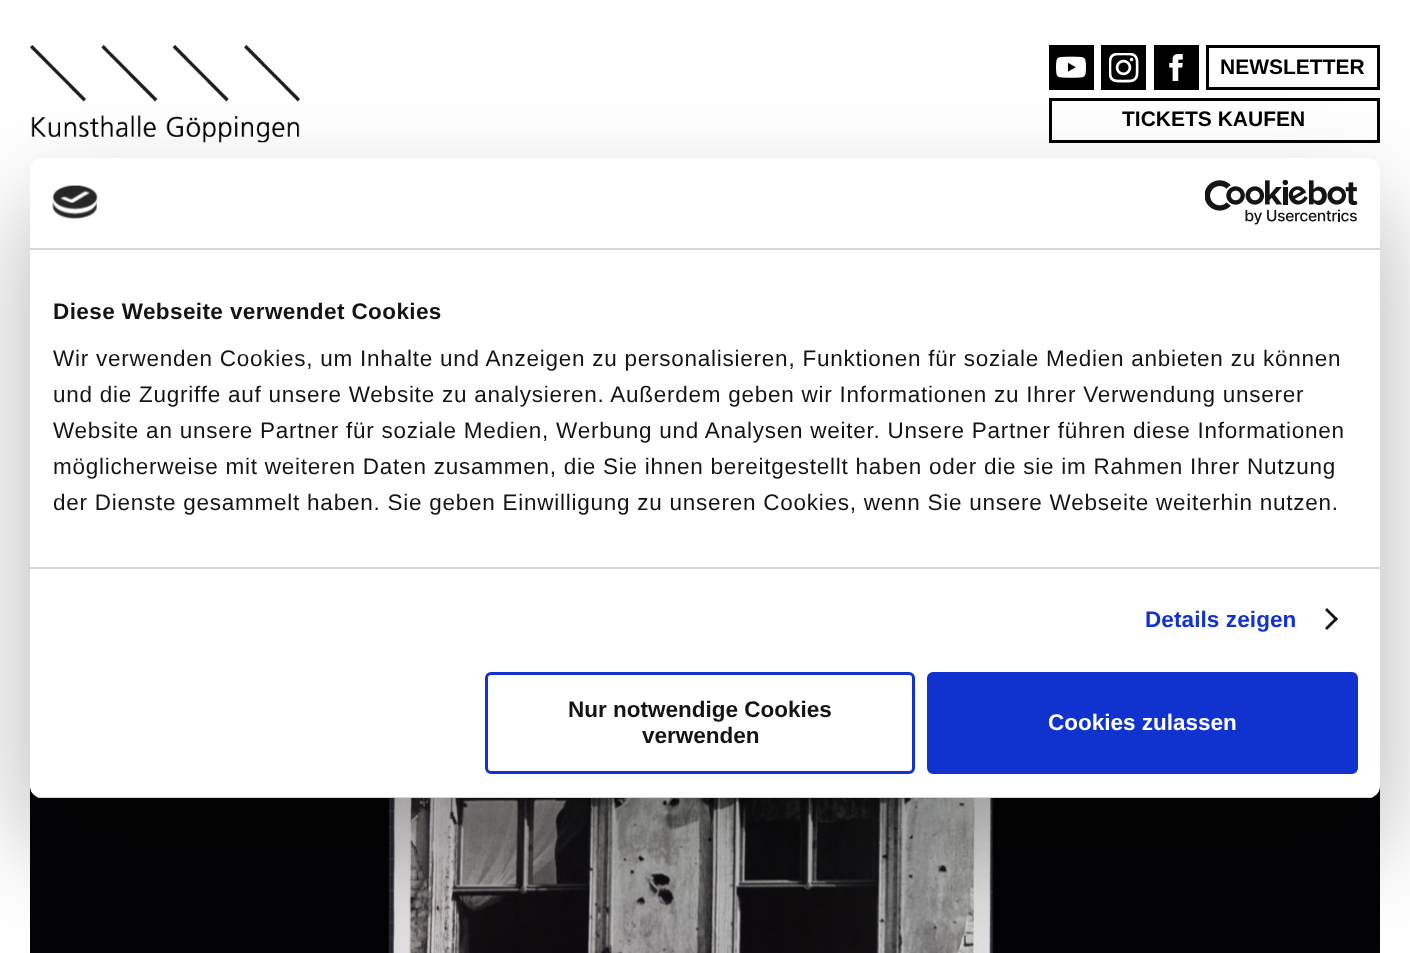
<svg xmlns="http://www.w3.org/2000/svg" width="1410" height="953">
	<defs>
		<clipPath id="clip1"><rect x="30" y="158" width="1350" height="640" rx="12" /></clipPath>
	</defs>
	<rect width="100%" height="100%" fill="#FFFFFF" />
	<image x="30" y="45" width="270" height="98" href="assets/img1.png" />
	<rect x="1049" y="45" width="45" height="45" fill="#000000" />
	<image x="1056" y="56" width="30" height="22" href="assets/img2.png" />
	<rect x="1101" y="45" width="45" height="45" fill="#000000" />
	<image x="1109" y="53" width="30" height="30" href="assets/img3.png" />
	<rect x="1154" y="45" width="45" height="45" fill="#000000" />
	<image x="1169" y="54" width="14" height="27" href="assets/img4.png" />
	<rect x="1207.5" y="46.5" width="171" height="42" fill="none" stroke="#000000" stroke-width="3" />
	<text x="1220" y="74" font-family="Liberation Sans" font-size="21" font-weight="700" fill="#000000">NEWSLETTER</text>
	<rect x="1050.5" y="99.5" width="328" height="42" fill="none" stroke="#000000" stroke-width="3" />
	<text x="1122" y="126" font-family="Liberation Sans" font-size="21" font-weight="700" fill="#000000">TICKETS KAUFEN</text>
	<image x="30" y="786" width="1350" height="167" href="assets/img5.png" />
	<rect x="30" y="206" width="1350" height="640" rx="12" fill="#000000" fill-opacity="0.3" filter="blur(51px)" />
	<rect x="30" y="158" width="1350" height="640" rx="12" fill="#FFFFFF" />
	<rect x="30" y="248" width="1350" height="2" fill="#D6D6D6" />
	<image x="52" y="185" width="46" height="34" href="assets/img6.png" />
	<image x="1205" y="180" width="153" height="45" href="assets/img7.png" />
	<rect x="30" y="567" width="1350" height="2" fill="#D6D6D6" />
	<text x="53" y="319" font-family="Liberation Sans" font-size="22.5" font-weight="700" letter-spacing="0.4" fill="#141414">Diese Webseite verwendet Cookies</text>
	<g font-family="Liberation Sans" font-size="22.5" letter-spacing="0.75" fill="#141414">
		<text x="53" y="366">Wir verwenden Cookies, um Inhalte und Anzeigen zu personalisieren, Funktionen für soziale Medien anbieten zu können</text>
		<text x="53" y="402">und die Zugriffe auf unsere Website zu analysieren. Außerdem geben wir Informationen zu Ihrer Verwendung unserer</text>
		<text x="53" y="438">Website an unsere Partner für soziale Medien, Werbung und Analysen weiter. Unsere Partner führen diese Informationen</text>
		<text x="53" y="474">möglicherweise mit weiteren Daten zusammen, die Sie ihnen bereitgestellt haben oder die sie im Rahmen Ihrer Nutzung</text>
		<text x="53" y="510">der Dienste gesammelt haben. Sie geben Einwilligung zu unseren Cookies, wenn Sie unsere Webseite weiterhin nutzen.</text>
	</g>
	<text x="1145" y="627" font-family="Liberation Sans" font-size="22.5" font-weight="700" letter-spacing="0.1" fill="#1032CF">Details zeigen</text>
	<path d="M1327 608L1338 619L1336 621L1325 610Z" fill="#141414" />
	<path d="M1336 617L1338 619L1327 630L1325 628Z" fill="#141414" />
	<g clip-path="url(#clip1)">
		<rect x="30" y="797" width="1350" height="1" fill="#D6D6D6" />
	</g>
	<rect x="486.5" y="673.5" width="427" height="99" rx="4.5" fill="none" stroke="#1032CF" stroke-width="3" />
	<g font-family="Liberation Sans" font-size="22.5" font-weight="700" fill="#141414">
		<text x="568" y="717">Nur notwendige Cookies</text>
		<text x="642" y="743">verwenden</text>
	</g>
	<rect x="928.5" y="673.5" width="428" height="99" rx="4.5" fill="#1032CF" stroke="#1032CF" stroke-width="3" />
	<text x="1048" y="730" font-family="Liberation Sans" font-size="22.5" font-weight="700" fill="#FFFFFF">Cookies zulassen</text>
</svg>
